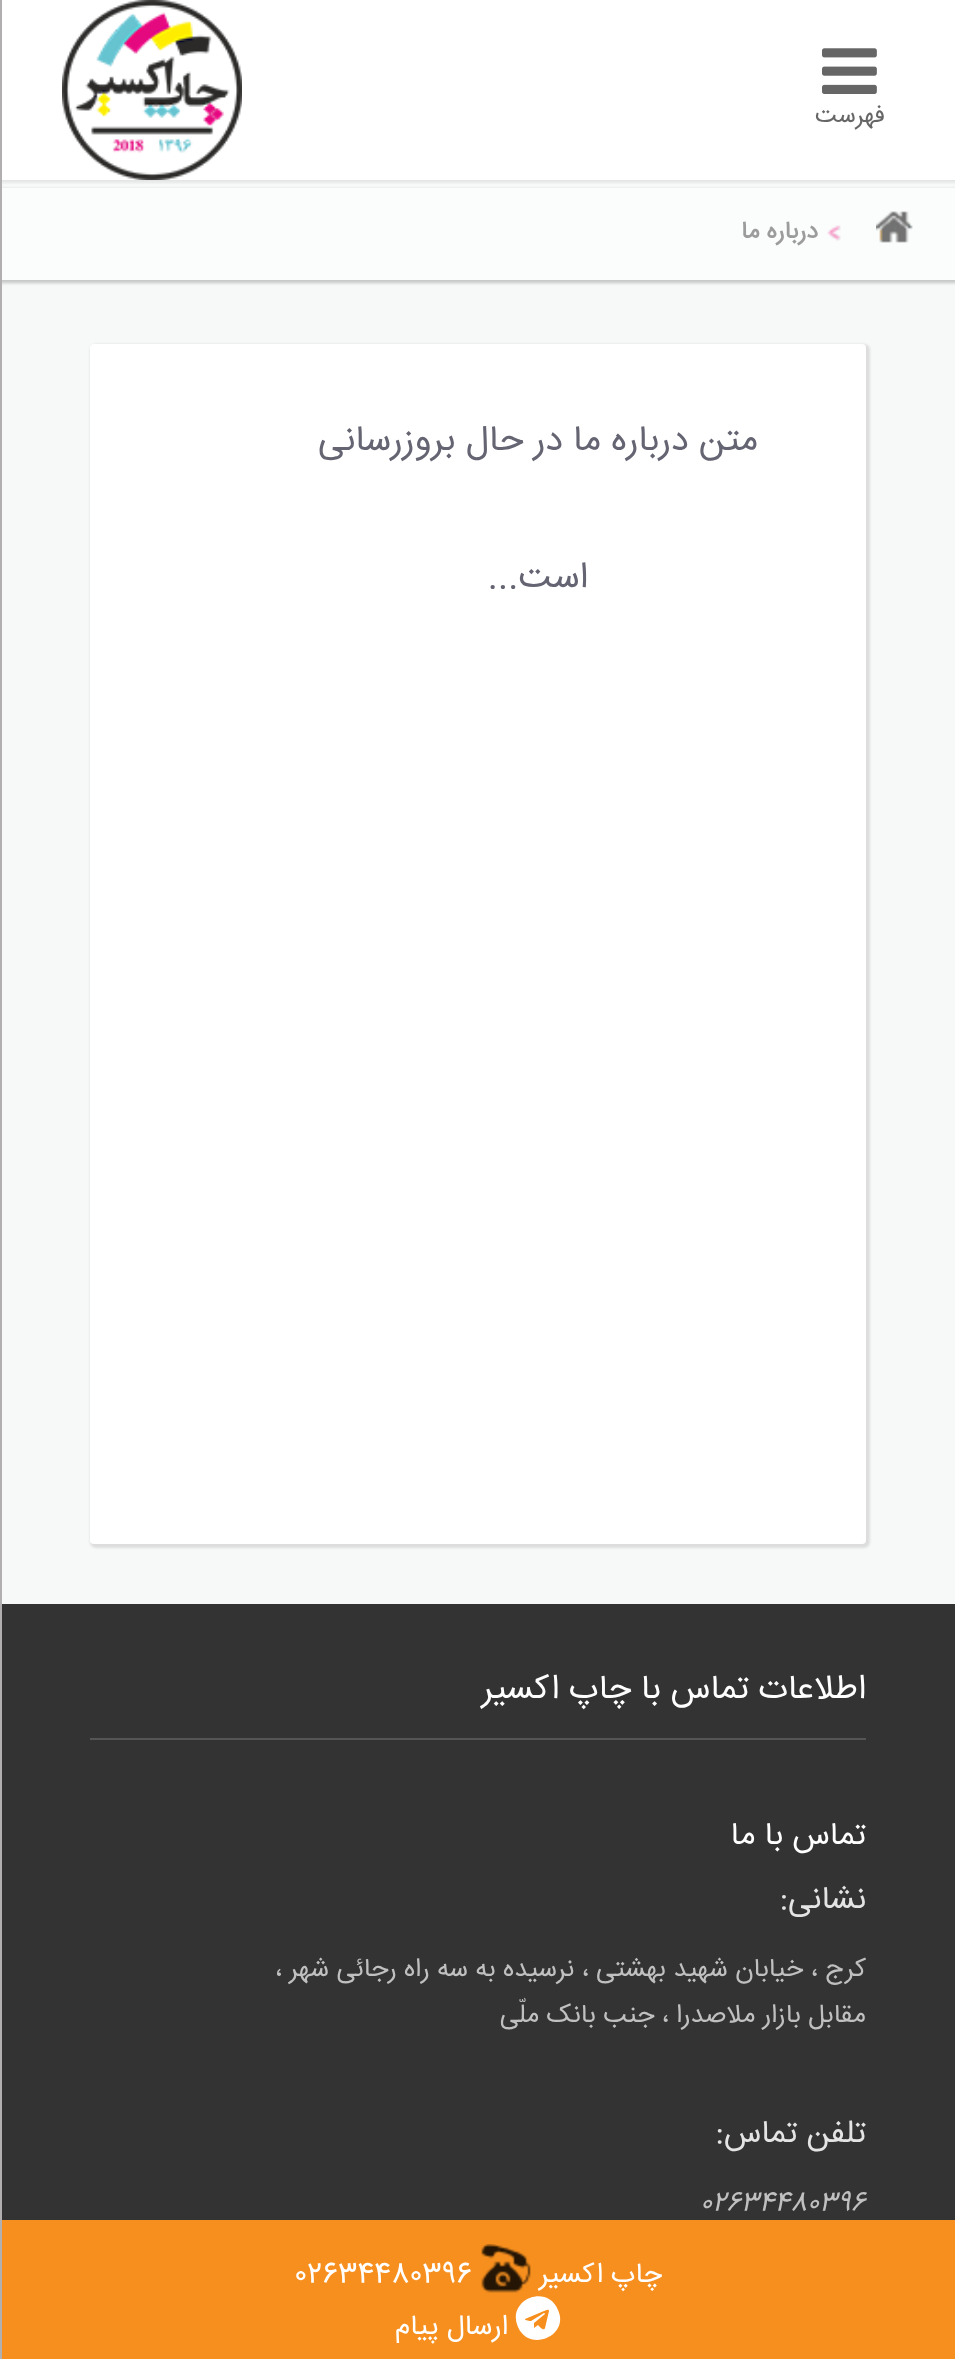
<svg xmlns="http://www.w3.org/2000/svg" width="955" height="2359">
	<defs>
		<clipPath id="clip1"><rect x="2" y="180" width="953" height="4" /></clipPath>
	</defs>
	<rect width="100%" height="100%" fill="#F7F9F9" />
	<rect x="2" y="0" width="953" height="180" fill="#FFFFFF" />
	<rect x="-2" y="188" width="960" height="96" fill="#000000" fill-opacity="0.1" filter="blur(1px)" />
	<rect x="0" y="190" width="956" height="92" fill="#000000" fill-opacity="0.1" filter="blur(1px)" />
	<rect x="2" y="188" width="953" height="92" fill="#FBFCFC" />
	<g clip-path="url(#clip1)">
		<rect x="-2" y="-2" width="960" height="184" fill="#000000" fill-opacity="0.1" filter="blur(2px)" />
	</g>
	<image x="822" y="48" width="55" height="46" href="assets/img1.png" />
	<text x="885" y="122" font-family="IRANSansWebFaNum" font-size="24" direction="rtl" fill="#666666">فهرست</text>
	<image x="62" y="0" width="180" height="180" href="assets/img2.png" />
	<rect x="0" y="2220" width="955" height="2" fill="#F78F1E" />
	<rect x="0" y="0" width="2" height="2359" fill="#B1AFAF" />
	<image x="876" y="211" width="37" height="32" href="assets/img3.png" />
	<image x="827" y="225" width="14" height="16" href="assets/img4.png" />
	<text x="818" y="238" font-family="IRANSansWebFaNum" font-size="24" font-weight="700" direction="rtl" fill="#9C9C9C">درباره ما</text>
	<rect x="90" y="344" width="780" height="1204" rx="6" fill="#DDDDDD" filter="blur(1px)" />
	<rect x="90" y="344" width="776" height="1200" rx="4" fill="#FFFFFF" />
	<g font-family="IRANSansWebFaNum" font-size="36" direction="rtl" fill="#646472">
		<text x="758" y="450">متن درباره ما در حال بروزرسانی</text>
		<text x="588" y="587">است...</text>
	</g>
	<rect x="2" y="1604" width="953" height="616" fill="#333333" />
	<rect x="90" y="1738" width="776" height="2" fill="#555555" />
	<g font-family="IRANSansWebFaNum" font-size="34" direction="rtl" fill="#FFFFFF">
		<text x="866" y="1698">اطلاعات تماس با</text>
		<text x="631" y="1698">چاپ اکسیر</text>
	</g>
	<text x="866" y="1844" font-family="IRANSansWebFaNum" font-size="32" direction="rtl" fill="#FFFFFF">تماس با ما</text>
	<text x="866" y="1908" font-family="IRANSansWebFaNum" font-size="32" direction="rtl" fill="#E4E4E4">نشانی:</text>
	<g font-family="IRANSansWebFaNum" font-size="26" direction="rtl" fill="#C0C0C0">
		<text x="866" y="1976">کرج ، خیابان شهید بهشتی ، نرسیده به سه راه رجائی شهر ،</text>
		<text x="866" y="2022">مقابل بازار ملاصدرا ، جنب بانک ملّی</text>
	</g>
	<text x="866" y="2142" font-family="IRANSansWebFaNum" font-size="32" direction="rtl" fill="#E4E4E4">تلفن تماس:</text>
	<text x="700" y="2210" font-family="IRANSansWebFaNum" font-size="26" font-style="italic" fill="#C0C0C0">02634480396</text>
	<rect x="2" y="2222" width="953" height="137" fill="#F78F1E" />
	<text x="662" y="2282" font-family="IRANSansWebFaNum" font-size="28" direction="rtl" fill="#FFFFFF">چاپ اکسیر</text>
	<image x="481" y="2244" width="50" height="49" href="assets/img5.png" />
	<text x="294" y="2282" font-family="IRANSansWebFaNum" font-size="28" fill="#FFFFFF">02634480396</text>
	<path d="M545 2328L549 2311C549 2308 544 2311 544 2311L525 2319C524 2320 530 2321 531 2321L544 2313C544 2313 545 2313 545 2314L534 2323V2328L538 2325C539 2326 544 2332 545 2328ZM558 2310C570 2336 529 2353 518 2327C506 2300 547 2283 558 2310Z" fill="#FFFFFF" />
	<text x="508" y="2334" font-family="IRANSansWebFaNum" font-size="28" direction="rtl" fill="#FFFFFF">ارسال پیام</text>
</svg>
